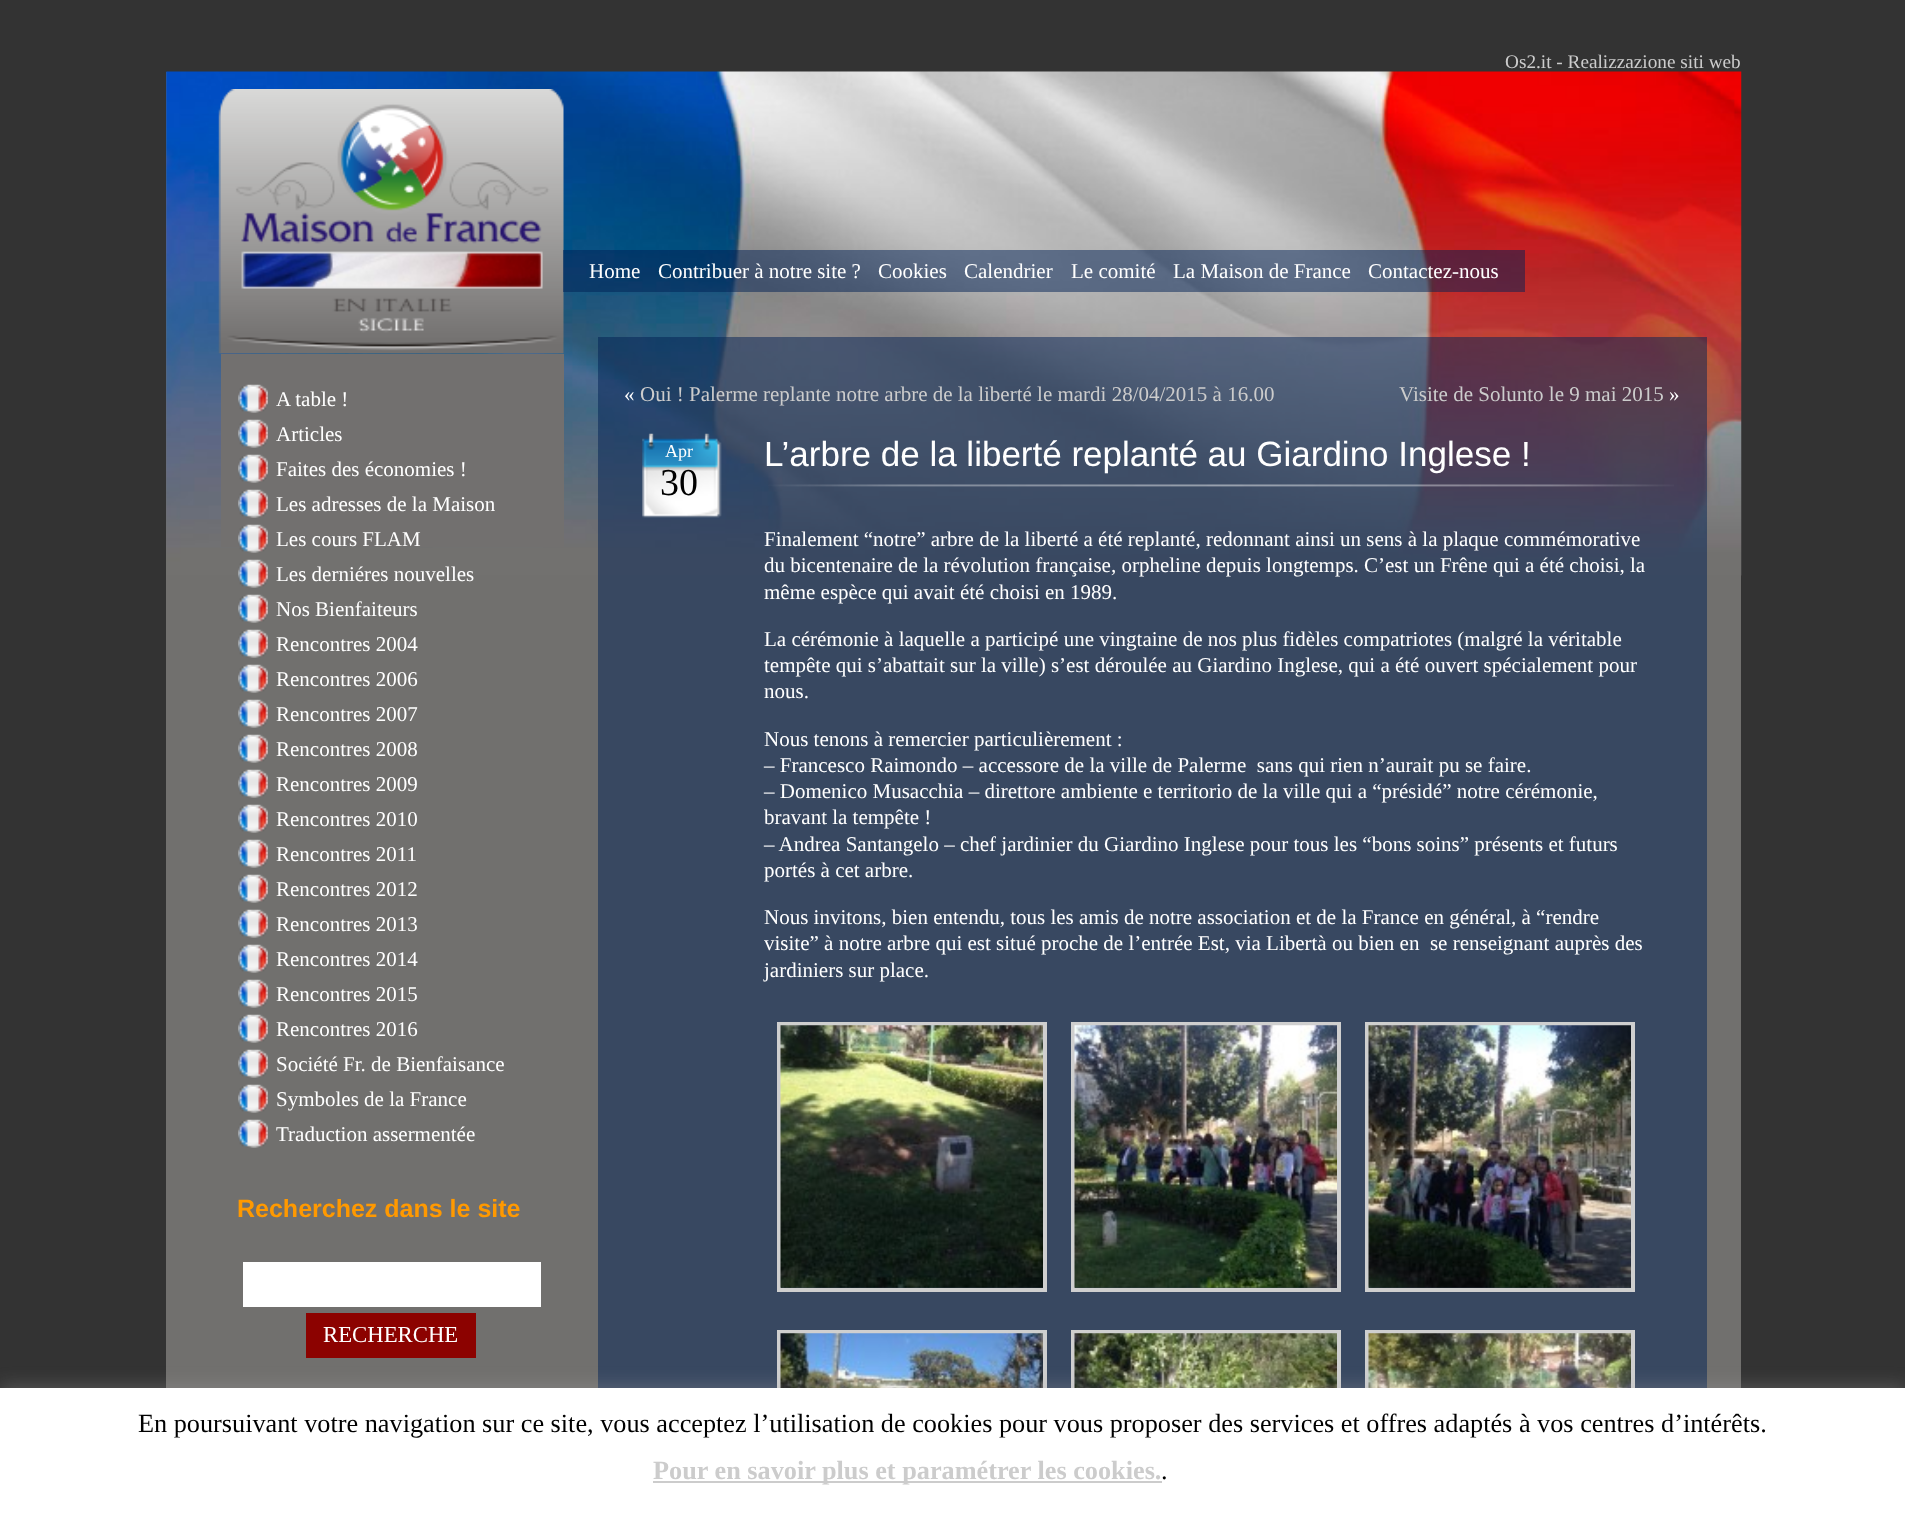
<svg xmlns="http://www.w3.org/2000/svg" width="1905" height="1518">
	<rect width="100%" height="100%" fill="#333333" />
	<text x="1505" y="68" font-family="Liberation Serif" font-size="19.25" fill="#CCCCCC">Os2.it - Realizzazione siti web</text>
	<rect x="166" y="72" width="1575" height="1316" fill="#71706E" />
	<image x="166" y="71" width="1576" height="505" href="assets/img1.png" />
	<image x="218" y="89" width="346" height="265" href="assets/img2.png" />
	<rect x="221" y="354" width="343" height="193" fill="#72706F" />
	<image x="238" y="384" width="30" height="29" href="assets/img3.png" />
	<text x="276" y="406" font-family="Liberation Serif" font-size="21" fill="#FFFFFF">A table !</text>
	<image x="238" y="419" width="30" height="29" href="assets/img3.png" />
	<text x="276" y="441" font-family="Liberation Serif" font-size="21" fill="#FFFFFF">Articles</text>
	<image x="238" y="454" width="30" height="29" href="assets/img3.png" />
	<text x="276" y="476" font-family="Liberation Serif" font-size="21" fill="#FFFFFF">Faites des économies !</text>
	<image x="238" y="489" width="30" height="29" href="assets/img3.png" />
	<text x="276" y="511" font-family="Liberation Serif" font-size="21" fill="#FFFFFF">Les adresses de la Maison</text>
	<image x="238" y="524" width="30" height="29" href="assets/img3.png" />
	<text x="276" y="546" font-family="Liberation Serif" font-size="21" fill="#FFFFFF">Les cours FLAM</text>
	<image x="238" y="559" width="30" height="29" href="assets/img3.png" />
	<text x="276" y="581" font-family="Liberation Serif" font-size="21" fill="#FFFFFF">Les derniéres nouvelles</text>
	<image x="238" y="594" width="30" height="29" href="assets/img3.png" />
	<text x="276" y="616" font-family="Liberation Serif" font-size="21" fill="#FFFFFF">Nos Bienfaiteurs</text>
	<image x="238" y="629" width="30" height="29" href="assets/img3.png" />
	<text x="276" y="651" font-family="Liberation Serif" font-size="21" fill="#FFFFFF">Rencontres 2004</text>
	<image x="238" y="664" width="30" height="29" href="assets/img3.png" />
	<text x="276" y="686" font-family="Liberation Serif" font-size="21" fill="#FFFFFF">Rencontres 2006</text>
	<image x="238" y="699" width="30" height="29" href="assets/img3.png" />
	<text x="276" y="721" font-family="Liberation Serif" font-size="21" fill="#FFFFFF">Rencontres 2007</text>
	<image x="238" y="734" width="30" height="29" href="assets/img3.png" />
	<text x="276" y="756" font-family="Liberation Serif" font-size="21" fill="#FFFFFF">Rencontres 2008</text>
	<image x="238" y="769" width="30" height="29" href="assets/img3.png" />
	<text x="276" y="791" font-family="Liberation Serif" font-size="21" fill="#FFFFFF">Rencontres 2009</text>
	<image x="238" y="804" width="30" height="29" href="assets/img3.png" />
	<text x="276" y="826" font-family="Liberation Serif" font-size="21" fill="#FFFFFF">Rencontres 2010</text>
	<image x="238" y="839" width="30" height="29" href="assets/img3.png" />
	<text x="276" y="861" font-family="Liberation Serif" font-size="21" fill="#FFFFFF">Rencontres 2011</text>
	<image x="238" y="874" width="30" height="29" href="assets/img3.png" />
	<text x="276" y="896" font-family="Liberation Serif" font-size="21" fill="#FFFFFF">Rencontres 2012</text>
	<image x="238" y="909" width="30" height="29" href="assets/img3.png" />
	<text x="276" y="931" font-family="Liberation Serif" font-size="21" fill="#FFFFFF">Rencontres 2013</text>
	<image x="238" y="944" width="30" height="29" href="assets/img3.png" />
	<text x="276" y="966" font-family="Liberation Serif" font-size="21" fill="#FFFFFF">Rencontres 2014</text>
	<image x="238" y="979" width="30" height="29" href="assets/img3.png" />
	<text x="276" y="1001" font-family="Liberation Serif" font-size="21" fill="#FFFFFF">Rencontres 2015</text>
	<image x="238" y="1014" width="30" height="29" href="assets/img3.png" />
	<text x="276" y="1036" font-family="Liberation Serif" font-size="21" fill="#FFFFFF">Rencontres 2016</text>
	<image x="238" y="1049" width="30" height="29" href="assets/img3.png" />
	<text x="276" y="1071" font-family="Liberation Serif" font-size="21" fill="#FFFFFF">Société Fr. de Bienfaisance</text>
	<image x="238" y="1084" width="30" height="29" href="assets/img3.png" />
	<text x="276" y="1106" font-family="Liberation Serif" font-size="21" fill="#FFFFFF">Symboles de la France</text>
	<image x="238" y="1119" width="30" height="29" href="assets/img3.png" />
	<text x="276" y="1141" font-family="Liberation Serif" font-size="21" fill="#FFFFFF">Traduction assermentée</text>
	<text x="237" y="1217" font-family="Liberation Sans" font-size="25" font-weight="700" fill="#FF9900">Recherchez dans le site</text>
	<rect x="243" y="1262" width="298" height="45" fill="#FFFFFF" />
	<rect x="306" y="1313" width="170" height="45" fill="#8C0200" />
	<text x="323" y="1342" font-family="Liberation Serif" font-size="22.75" fill="#FFFFFF">RECHERCHE</text>
	<rect x="598" y="337" width="1109" height="1051" fill="#002054" fill-opacity="0.5" />
	<rect x="563" y="250" width="962" height="42" fill="#002054" fill-opacity="0.5" />
	<g font-family="Liberation Serif" font-size="21" fill="#FFFFFF">
		<text x="589" y="278">Home</text>
		<text x="658" y="278">Contribuer à notre site ?</text>
		<text x="878" y="278">Cookies</text>
		<text x="964" y="278">Calendrier</text>
		<text x="1071" y="278">Le comité</text>
		<text x="1173" y="278">La Maison de France</text>
		<text x="1368" y="278">Contactez-nous</text>
		<text x="624" y="401">«</text>
	</g>
	<g font-family="Liberation Serif" font-size="21" fill="#CCCCCC">
		<text x="640" y="401">Oui ! Palerme replante notre arbre de la liberté le mardi 28/04/2015 à 16.00</text>
		<text x="1399" y="401">Visite de Solunto le 9 mai 2015</text>
	</g>
	<text x="1669" y="401" font-family="Liberation Serif" font-size="21" fill="#FFFFFF">»</text>
	<image x="642" y="433" width="1032" height="85" href="assets/img4.png" />
	<text x="665" y="457" font-family="Liberation Serif" font-size="18" fill="#FFFFFF">Apr</text>
	<text x="660" y="495" font-family="Liberation Serif" font-size="38" fill="#000000">30</text>
	<text x="764" y="466" font-family="Liberation Sans" font-size="35" fill="#FFFFFF">L’arbre de la liberté replanté au Giardino Inglese !</text>
	<g font-family="Liberation Serif" font-size="21" fill="#FFFFFF">
		<text x="764" y="546">Finalement “notre” arbre de la liberté a été replanté, redonnant ainsi un sens à la plaque commémorative</text>
		<text x="764" y="572">du bicentenaire de la révolution française, orpheline depuis longtemps. C’est un Frêne qui a été choisi, la</text>
		<text x="764" y="599">même espèce qui avait été choisi en 1989.</text>
		<text x="764" y="646">La cérémonie à laquelle a participé une vingtaine de nos plus fidèles compatriotes (malgré la véritable</text>
		<text x="764" y="672">tempête qui s’abattait sur la ville) s’est déroulée au Giardino Inglese, qui a été ouvert spécialement pour</text>
		<text x="764" y="698">nous.</text>
		<text x="764" y="746">Nous tenons à remercier particulièrement :</text>
		<text x="764" y="772" xml:space="preserve">– Francesco Raimondo – accessore de la ville de Palerme  sans qui rien n’aurait pu se faire.</text>
		<text x="764" y="798">– Domenico Musacchia – direttore ambiente e territorio de la ville qui a “présidé” notre cérémonie,</text>
		<text x="764" y="824">bravant la tempête !</text>
		<text x="764" y="851">– Andrea Santangelo – chef jardinier du Giardino Inglese pour tous les “bons soins” présents et futurs</text>
		<text x="764" y="877">portés à cet arbre.</text>
		<text x="764" y="924">Nous invitons, bien entendu, tous les amis de notre association et de la France en général, à “rendre</text>
		<text x="764" y="950" xml:space="preserve">visite” à notre arbre qui est situé proche de l’entrée Est, via Libertà ou bien en  se renseignant auprès des</text>
		<text x="764" y="977">jardiniers sur place.</text>
	</g>
	<rect x="779" y="1024" width="266" height="266" fill="none" stroke="#CFCFCF" stroke-width="4" />
	<image x="780" y="1025" width="263" height="263" href="assets/img5.png" />
	<rect x="1073" y="1024" width="266" height="266" fill="none" stroke="#CFCFCF" stroke-width="4" />
	<image x="1074" y="1025" width="263" height="263" href="assets/img6.png" />
	<rect x="1367" y="1024" width="266" height="266" fill="none" stroke="#CFCFCF" stroke-width="4" />
	<image x="1368" y="1025" width="263" height="263" href="assets/img7.png" />
	<rect x="779" y="1332" width="266" height="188" fill="none" stroke="#CFCFCF" stroke-width="4" />
	<image x="780" y="1333" width="263" height="55" href="assets/img8.png" />
	<rect x="1073" y="1332" width="266" height="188" fill="none" stroke="#CFCFCF" stroke-width="4" />
	<image x="1074" y="1333" width="263" height="55" href="assets/img9.png" />
	<rect x="1367" y="1332" width="266" height="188" fill="none" stroke="#CFCFCF" stroke-width="4" />
	<image x="1368" y="1333" width="263" height="55" href="assets/img10.png" />
	<rect x="0" y="1386" width="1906" height="131" fill="#ACABAB" fill-opacity="0.3" filter="blur(9px)" />
	<rect x="0" y="1388" width="1905" height="130" fill="#FFFFFF" />
	<text x="138" y="1432" font-family="Liberation Serif" font-size="26.25" fill="#000000">En poursuivant votre navigation sur ce site, vous acceptez l’utilisation de cookies pour vous proposer des services et offres adaptés à vos centres d’intérêts.</text>
	<rect x="653" y="1481" width="509" height="2" fill="#CCCCCC" />
	<text x="653" y="1479" font-family="Liberation Serif" font-size="26.25" font-weight="700" fill="#CCCCCC">Pour en savoir plus et paramétrer les cookies.</text>
	<text x="1161" y="1479" font-family="Liberation Serif" font-size="26.25" fill="#000000">.</text>
</svg>
